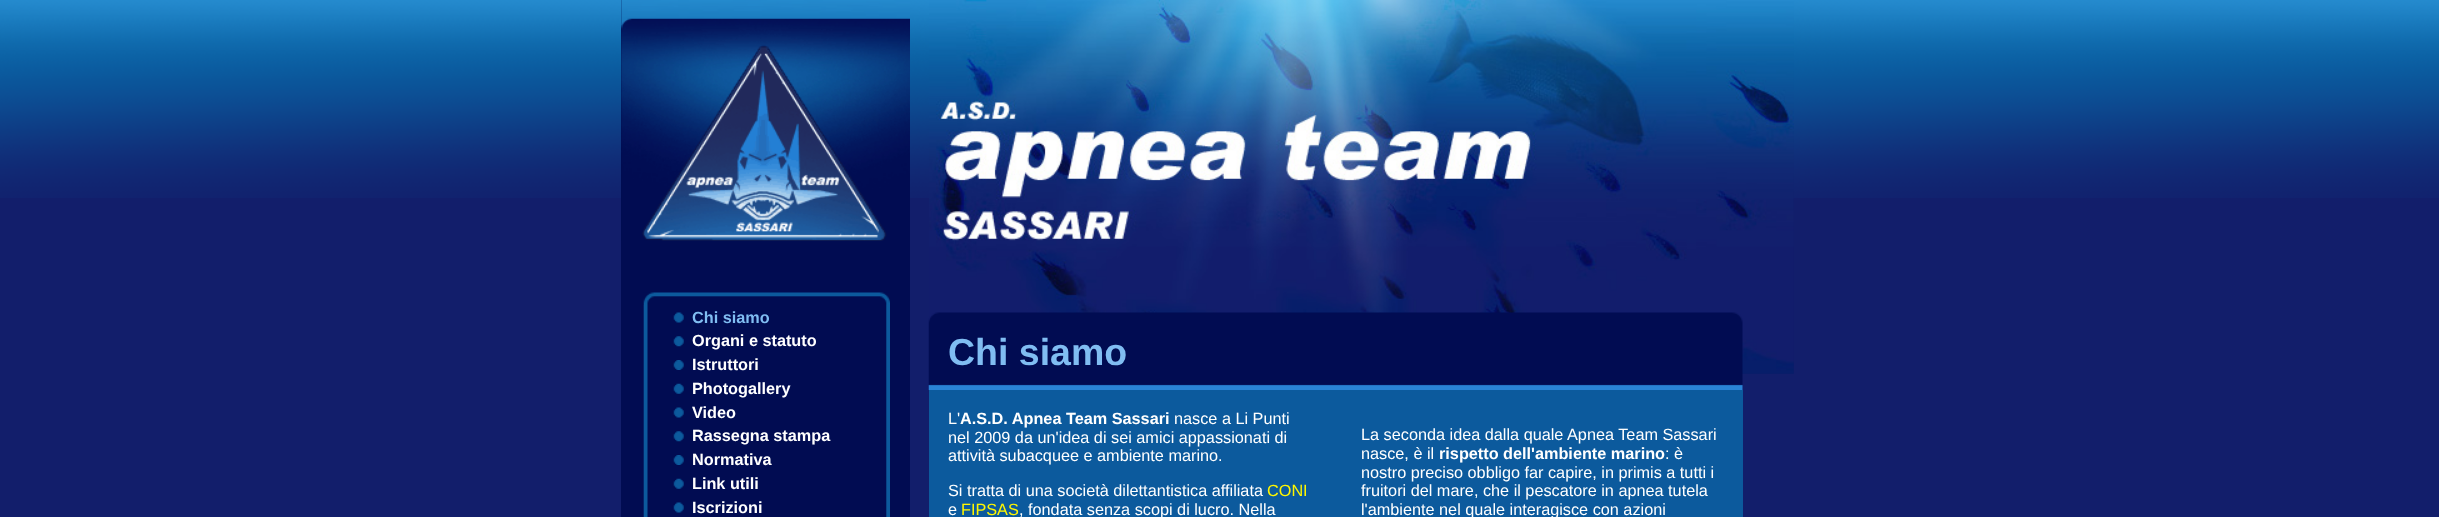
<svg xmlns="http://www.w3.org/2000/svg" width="2439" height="517">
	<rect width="100%" height="100%" fill="#121E6B" />
	<image x="0" y="0" width="2439" height="198" href="assets/img1.png" />
	<rect x="621" y="0" width="289" height="517" fill="#010C52" />
	<image x="621" y="0" width="289" height="241" href="assets/img2.png" />
	<image x="643" y="292" width="247" height="13" href="assets/img3.png" />
	<image x="643" y="305" width="247" height="212" href="assets/img4.png" />
	<image x="673" y="312" width="11" height="11" href="assets/img5.png" />
	<text x="692" y="323" font-family="Liberation Sans" font-size="16.25" font-weight="700" fill="#80BDF2">Chi siamo</text>
	<image x="673" y="336" width="11" height="11" href="assets/img6.png" />
	<text x="692" y="346" font-family="Liberation Sans" font-size="16.25" font-weight="700" fill="#FFFFFF">Organi e statuto</text>
	<image x="673" y="360" width="11" height="10" href="assets/img7.png" />
	<text x="692" y="370" font-family="Liberation Sans" font-size="16.25" font-weight="700" fill="#FFFFFF">Istruttori</text>
	<image x="673" y="383" width="11" height="11" href="assets/img8.png" />
	<text x="692" y="394" font-family="Liberation Sans" font-size="16.25" font-weight="700" fill="#FFFFFF">Photogallery</text>
	<image x="673" y="407" width="11" height="11" href="assets/img5.png" />
	<text x="692" y="418" font-family="Liberation Sans" font-size="16.25" font-weight="700" fill="#FFFFFF">Video</text>
	<image x="673" y="431" width="11" height="11" href="assets/img6.png" />
	<text x="692" y="441" font-family="Liberation Sans" font-size="16.25" font-weight="700" fill="#FFFFFF">Rassegna stampa</text>
	<image x="673" y="455" width="11" height="10" href="assets/img7.png" />
	<text x="692" y="465" font-family="Liberation Sans" font-size="16.25" font-weight="700" fill="#FFFFFF">Normativa</text>
	<image x="673" y="478" width="11" height="11" href="assets/img8.png" />
	<text x="692" y="489" font-family="Liberation Sans" font-size="16.25" font-weight="700" fill="#FFFFFF">Link utili</text>
	<image x="673" y="502" width="11" height="11" href="assets/img5.png" />
	<text x="692" y="513" font-family="Liberation Sans" font-size="16.25" font-weight="700" fill="#FFFFFF">Iscrizioni</text>
	<image x="929" y="0" width="865" height="374" href="assets/img9.png" />
	<image x="928" y="312" width="815" height="78" href="assets/img10.png" />
	<text x="948" y="365" font-family="Liberation Sans" font-size="37.5" font-weight="700" fill="#80BDF2">Chi siamo</text>
	<rect x="929" y="390" width="814" height="127" fill="#0C5A9D" />
	<text x="948" y="424" font-family="Liberation Sans" font-size="16.25" fill="#FFFFFF">L'</text>
	<text x="960" y="424" font-family="Liberation Sans" font-size="16.25" font-weight="700" fill="#FFFFFF">A.S.D. Apnea Team Sassari</text>
	<g font-family="Liberation Sans" font-size="16.25" fill="#FFFFFF">
		<text x="1174" y="424">nasce a Li Punti</text>
		<text x="948" y="443">nel 2009 da un'idea di sei amici appassionati di</text>
		<text x="948" y="461">attività subacquee e ambiente marino.</text>
		<text x="948" y="496">Si tratta di una società dilettantistica affiliata</text>
	</g>
	<text x="1267" y="496" font-family="Liberation Sans" font-size="16.25" fill="#FFF600">CONI</text>
	<text x="948" y="515" font-family="Liberation Sans" font-size="16.25" fill="#FFFFFF">e</text>
	<text x="961" y="515" font-family="Liberation Sans" font-size="16.25" fill="#FFF600">FIPSAS</text>
	<g font-family="Liberation Sans" font-size="16.25" fill="#FFFFFF">
		<text x="1019" y="515">, fondata senza scopi di lucro. Nella</text>
		<text x="1361" y="440">La seconda idea dalla quale Apnea Team Sassari</text>
		<text x="1361" y="459">nasce, è il</text>
	</g>
	<text x="1439" y="459" font-family="Liberation Sans" font-size="16.25" font-weight="700" fill="#FFFFFF">rispetto dell'ambiente marino</text>
	<g font-family="Liberation Sans" font-size="16.25" fill="#FFFFFF">
		<text x="1665" y="459">: è</text>
		<text x="1361" y="478">nostro preciso obbligo far capire, in primis a tutti i</text>
		<text x="1361" y="496">fruitori del mare, che il pescatore in apnea tutela</text>
		<text x="1361" y="515">l'ambiente nel quale interagisce con azioni</text>
	</g>
</svg>
